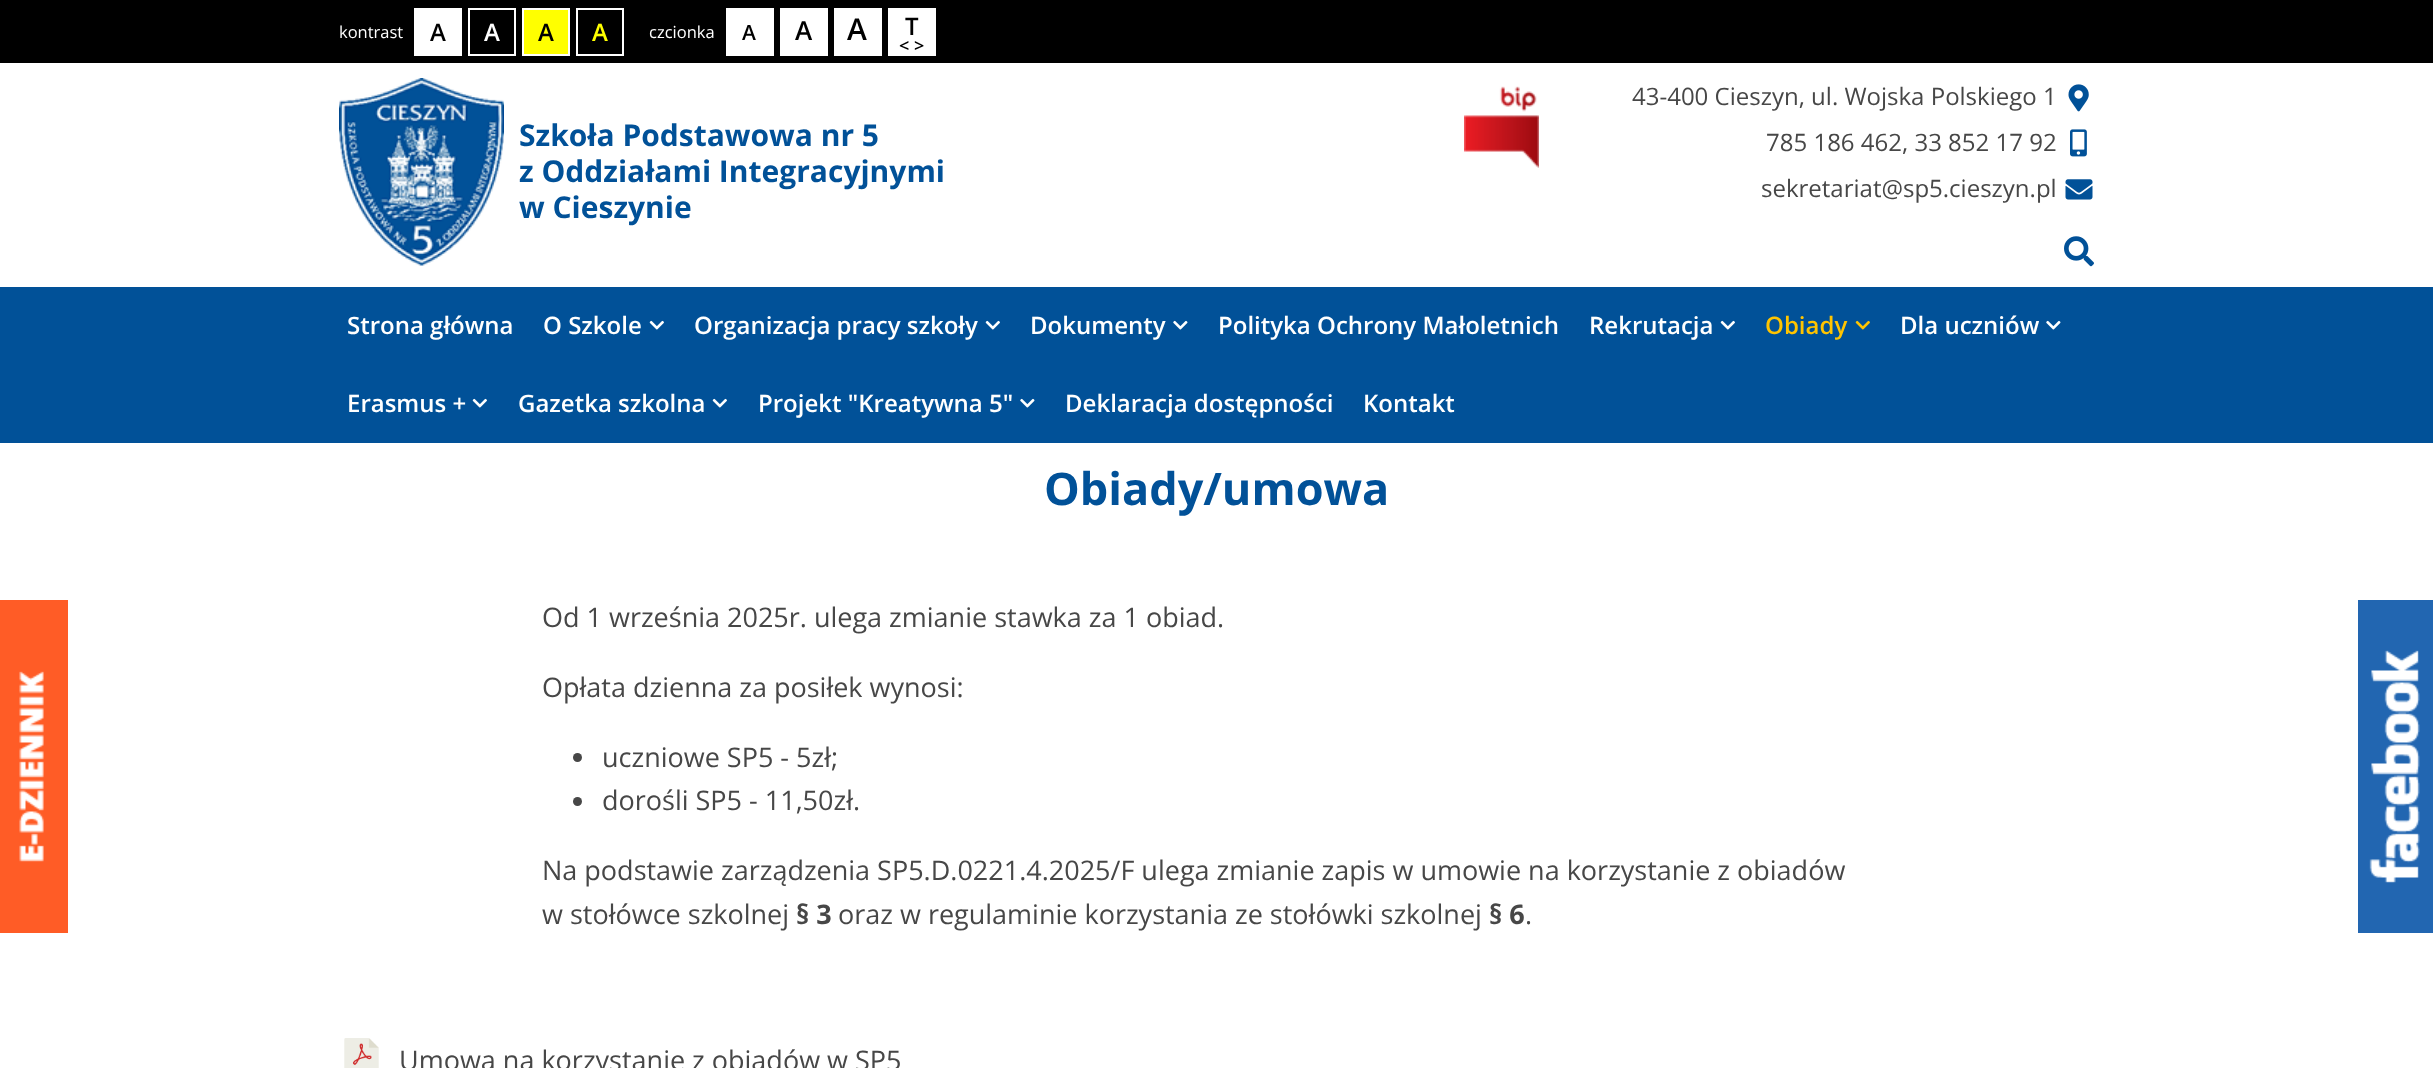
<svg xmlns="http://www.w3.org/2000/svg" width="2433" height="1068">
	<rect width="100%" height="100%" fill="#FFFFFF" />
	<rect x="0" y="0" width="2433" height="63" fill="#000000" />
	<text x="339" y="38" font-family="Open Sans" font-size="16.5" fill="#FFFFFF">kontrast</text>
	<rect x="414" y="8" width="48" height="48" fill="#FFFFFF" />
	<text x="430" y="41" font-family="Open Sans" font-size="24" font-weight="600" fill="#000000">A</text>
	<rect x="469" y="9" width="46" height="46" fill="none" stroke="#FFFFFF" stroke-width="2" />
	<text x="484" y="41" font-family="Open Sans" font-size="24" font-weight="600" fill="#FFFFFF">A</text>
	<rect x="523" y="9" width="46" height="46" fill="#FFFF00" stroke="#FFFFFF" stroke-width="2" />
	<text x="538" y="41" font-family="Open Sans" font-size="24" font-weight="600" fill="#000000">A</text>
	<rect x="577" y="9" width="46" height="46" fill="none" stroke="#FFFFFF" stroke-width="2" />
	<text x="592" y="41" font-family="Open Sans" font-size="24" font-weight="600" fill="#FFFF00">A</text>
	<text x="649" y="38" font-family="Open Sans" font-size="16.5" fill="#FFFFFF">czcionka</text>
	<rect x="726" y="8" width="48" height="48" fill="#FFFFFF" />
	<text x="742" y="40" font-family="Open Sans" font-size="21" font-weight="600" fill="#000000">A</text>
	<rect x="780" y="8" width="48" height="48" fill="#FFFFFF" />
	<text x="795" y="40" font-family="Open Sans" font-size="26" font-weight="600" fill="#000000">A</text>
	<rect x="834" y="8" width="48" height="48" fill="#FFFFFF" />
	<text x="847" y="40" font-family="Open Sans" font-size="30" font-weight="600" fill="#000000">A</text>
	<rect x="888" y="8" width="48" height="48" fill="#FFFFFF" />
	<text x="905" y="35" font-family="Open Sans" font-size="24" font-weight="600" fill="#000000">T</text>
	<text x="899" y="52" font-family="Open Sans" font-size="18" font-weight="600" fill="#000000">&lt; &gt;</text>
	<image x="339" y="78" width="165" height="188" href="assets/img1.png" />
	<g font-family="Open Sans" font-size="30" font-weight="700" fill="#015198">
		<text x="519" y="146">Szkoła Podstawowa nr 5</text>
		<text x="519" y="182">z Oddziałami Integracyjnymi</text>
		<text x="519" y="218">w Cieszynie</text>
	</g>
	<image x="1464" y="86" width="75" height="82" href="assets/img2.png" />
	<text x="1632" y="105" font-family="Open Sans" font-size="24" fill="#474747">43-400 Cieszyn, ul. Wojska Polskiego 1</text>
	<image x="2068" y="84" width="21" height="28" href="assets/img3.png" />
	<text x="1766" y="151" font-family="Open Sans" font-size="24" fill="#474747">785 186 462, 33 852 17 92</text>
	<image x="2070" y="129" width="17" height="28" href="assets/img4.png" />
	<text x="1761" y="197" font-family="Open Sans" font-size="24" fill="#474747">sekretariat@sp5.cieszyn.pl</text>
	<image x="2065" y="179" width="28" height="21" href="assets/img5.png" />
	<image x="2064" y="236" width="30" height="31" href="assets/img6.png" />
	<rect x="0" y="287" width="2433" height="156" fill="#015198" />
	<g font-family="Open Sans" font-size="24" font-weight="600" fill="#FFFFFF">
		<text x="347" y="334">Strona główna</text>
		<text x="543" y="334">O Szkole</text>
	</g>
	<image x="649" y="320" width="15" height="10" href="assets/img7.png" />
	<text x="694" y="334" font-family="Open Sans" font-size="24" font-weight="600" fill="#FFFFFF">Organizacja pracy szkoły</text>
	<image x="985" y="320" width="15" height="10" href="assets/img7.png" />
	<text x="1030" y="334" font-family="Open Sans" font-size="24" font-weight="600" fill="#FFFFFF">Dokumenty</text>
	<image x="1173" y="320" width="15" height="10" href="assets/img8.png" />
	<g font-family="Open Sans" font-size="24" font-weight="600" fill="#FFFFFF">
		<text x="1218" y="334">Polityka Ochrony Małoletnich</text>
		<text x="1589" y="334">Rekrutacja</text>
	</g>
	<image x="1720" y="320" width="15" height="10" href="assets/img7.png" />
	<text x="1765" y="334" font-family="Open Sans" font-size="24" font-weight="600" fill="#FFC400">Obiady</text>
	<image x="1855" y="320" width="15" height="10" href="assets/img9.png" />
	<text x="1900" y="334" font-family="Open Sans" font-size="24" font-weight="600" fill="#FFFFFF">Dla uczniów</text>
	<image x="2046" y="320" width="15" height="10" href="assets/img8.png" />
	<text x="347" y="412" font-family="Open Sans" font-size="24" font-weight="600" fill="#FFFFFF">Erasmus +</text>
	<image x="472" y="398" width="15" height="10" href="assets/img7.png" />
	<text x="518" y="412" font-family="Open Sans" font-size="24" font-weight="600" fill="#FFFFFF">Gazetka szkolna</text>
	<image x="712" y="398" width="15" height="10" href="assets/img7.png" />
	<text x="758" y="412" font-family="Open Sans" font-size="24" font-weight="600" fill="#FFFFFF">Projekt "Kreatywna 5"</text>
	<image x="1020" y="398" width="15" height="10" href="assets/img8.png" />
	<g font-family="Open Sans" font-size="24" font-weight="600" fill="#FFFFFF">
		<text x="1065" y="412">Deklaracja dostępności</text>
		<text x="1363" y="412">Kontakt</text>
	</g>
	<image x="0" y="600" width="68" height="333" href="assets/img10.png" />
	<text x="1044" y="505" font-family="Open Sans" font-size="45" font-weight="700" fill="#015198">Obiady/umowa</text>
	<g font-family="Open Sans" font-size="27" fill="#474747">
		<text x="542" y="627">Od 1 września 2025r. ulega zmianie stawka za 1 obiad.</text>
		<text x="542" y="697">Opłata dzienna za posiłek wynosi:</text>
	</g>
	<circle cx="577.5" cy="757.5" r="4.5" fill="#474747" />
	<text x="602" y="767" font-family="Open Sans" font-size="27" fill="#474747">uczniowe SP5 - 5zł;</text>
	<circle cx="577.5" cy="801.5" r="4.5" fill="#474747" />
	<g font-family="Open Sans" font-size="27" fill="#474747">
		<text x="602" y="810">dorośli SP5 - 11,50zł.</text>
		<text x="542" y="880">Na podstawie zarządzenia SP5.D.0221.4.2025/F ulega zmianie zapis w umowie na korzystanie z obiadów</text>
		<text x="542" y="924">w stołówce szkolnej</text>
	</g>
	<text x="796" y="924" font-family="Open Sans" font-size="27" font-weight="700" fill="#474747">§ 3</text>
	<text x="838" y="924" font-family="Open Sans" font-size="27" fill="#474747">oraz w regulaminie korzystania ze stołówki szkolnej</text>
	<text x="1489" y="924" font-family="Open Sans" font-size="27" font-weight="700" fill="#474747">§ 6</text>
	<text x="1525" y="924" font-family="Open Sans" font-size="27" fill="#474747">.</text>
	<image x="344" y="1038" width="35" height="30" href="assets/img11.png" />
	<text x="399" y="1070" font-family="Open Sans" font-size="27" fill="#474747">Umowa na korzystanie z obiadów w SP5</text>
	<image x="2358" y="600" width="75" height="333" href="assets/img12.png" />
</svg>
